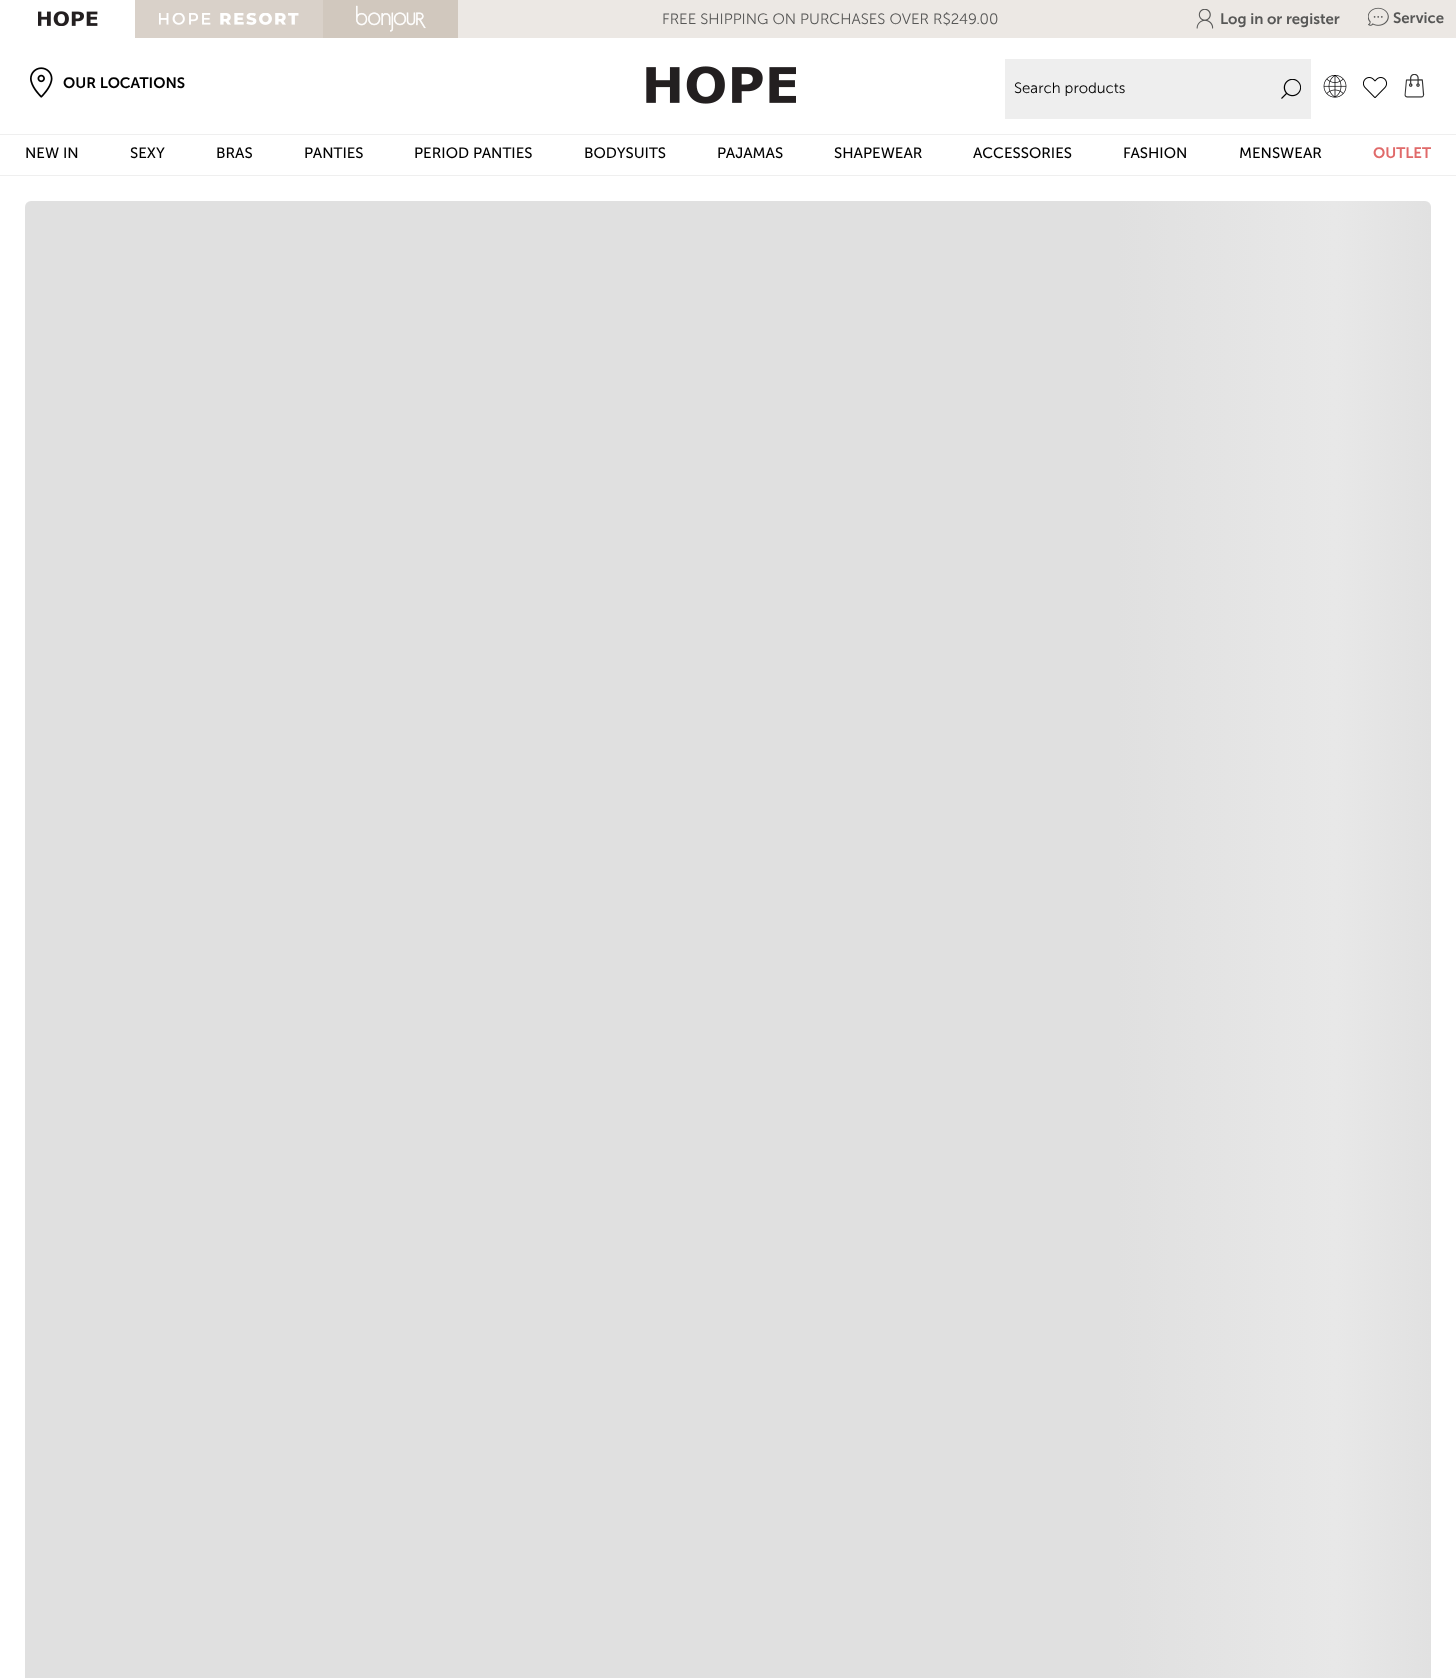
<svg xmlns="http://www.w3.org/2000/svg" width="1456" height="1678">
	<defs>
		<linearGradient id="g1" gradientUnits="userSpaceOnUse" x1="25" y1="1041" x2="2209" y2="1041"><stop offset="0" stop-color="#E0E0E0" /><stop offset="0.5" stop-color="#E0E0E0" /><stop offset="0.6" stop-color="#E8E8E8" /><stop offset="0.65" stop-color="#E0E0E0" /><stop offset="1" stop-color="#E0E0E0" /></linearGradient>
	</defs>
	<rect width="100%" height="100%" fill="#FFFFFF" />
	<rect x="458" y="0" width="998" height="38" fill="#ECE8E4" />
	<image x="38" y="11" width="60" height="15" href="assets/img1.png" />
	<rect x="135" y="0" width="188" height="38" fill="#D9D1C9" />
	<image x="159" y="13" width="140" height="12" href="assets/img2.png" />
	<rect x="323" y="0" width="135" height="38" fill="#D1C8BE" />
	<image x="356" y="5" width="70" height="27" href="assets/img3.png" />
	<text x="662" y="24" font-family="Museo Sans" font-size="15" font-weight="300" fill="#575756">FREE SHIPPING ON PURCHASES OVER R$249.00</text>
	<image x="1196" y="9" width="18" height="20" href="assets/img4.png" />
	<text x="1220" y="24" font-family="Museo Sans" font-size="15" font-weight="600" fill="#575756">Log in or register</text>
	<image x="1368" y="7" width="21" height="19" href="assets/img5.png" />
	<text x="1393" y="23" font-family="Museo Sans" font-size="15" font-weight="600" fill="#575756">Service</text>
	<rect x="0" y="134" width="1456" height="1" fill="#EFEFEF" />
	<image x="30" y="67" width="23" height="31" href="assets/img6.png" />
	<text x="63" y="88" font-family="Museo Sans" font-size="15" font-weight="600" fill="#000000">OUR LOCATIONS</text>
	<image x="646" y="66" width="150" height="38" href="assets/img7.png" />
	<rect x="1005" y="59" width="306" height="60" fill="#EEEEEE" />
	<text x="1014" y="93" font-family="Museo Sans" font-size="15" font-weight="300" fill="#000000">Search products</text>
	<image x="1281" y="79" width="20" height="20" href="assets/img8.png" />
	<image x="1323" y="75" width="24" height="23" href="assets/img9.png" />
	<image x="1363" y="77" width="25" height="21" href="assets/img10.png" />
	<image x="1404" y="74" width="21" height="24" href="assets/img11.png" />
	<rect x="0" y="175" width="1456" height="1" fill="#EFEFEF" />
	<g font-family="Museo Sans" font-size="15" fill="#000000">
		<text x="25" y="158">NEW IN</text>
		<text x="130" y="158">SEXY</text>
		<text x="216" y="158">BRAS</text>
		<text x="304" y="158">PANTIES</text>
		<text x="414" y="158">PERIOD PANTIES</text>
		<text x="584" y="158">BODYSUITS</text>
		<text x="717" y="158">PAJAMAS</text>
		<text x="834" y="158">SHAPEWEAR</text>
		<text x="973" y="158">ACCESSORIES</text>
		<text x="1123" y="158">FASHION</text>
		<text x="1239" y="158">MENSWEAR</text>
	</g>
	<text x="1373" y="158" font-family="Museo Sans" font-size="15" font-weight="600" fill="#E06A6A">OUTLET</text>
	<rect x="25" y="201" width="1406" height="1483" rx="6" fill="url(#g1)" />
</svg>
